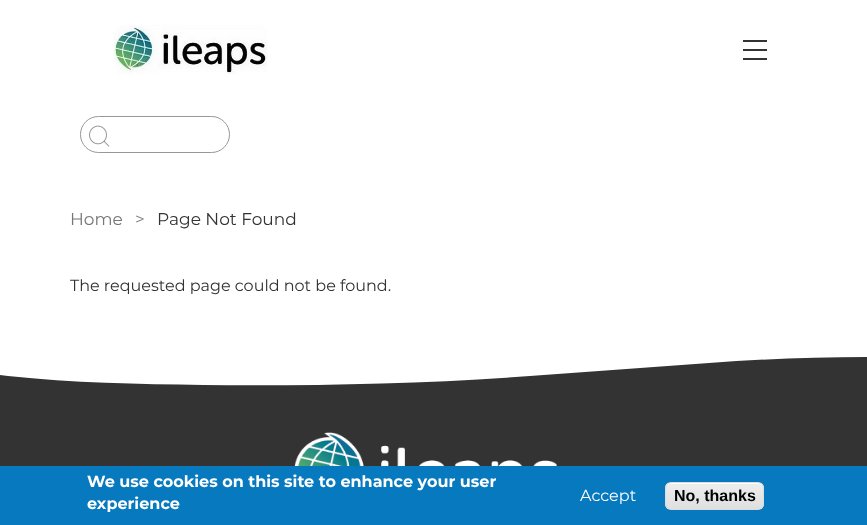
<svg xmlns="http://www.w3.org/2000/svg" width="867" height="525">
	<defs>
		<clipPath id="clip1"><rect x="0" y="357" width="867" height="43" /></clipPath>
		<clipPath id="clip2"><rect x="665" y="482" width="99" height="28" rx="6" /></clipPath>
		<linearGradient id="g1" gradientUnits="userSpaceOnUse" x1="715" y1="483" x2="715" y2="509"><stop offset="0.05" stop-color="#EDEDED" /><stop offset="1" stop-color="#DFDFDF" /></linearGradient>
	</defs>
	<rect width="100%" height="100%" fill="#FFFFFF" />
	<image x="113" y="25" width="155" height="50" href="assets/img1.png" />
	<rect x="743" y="40" width="24" height="2" fill="#333333" />
	<rect x="743" y="49" width="24" height="2" fill="#333333" />
	<rect x="743" y="58" width="24" height="2" fill="#333333" />
	<rect x="80.5" y="116.5" width="149" height="36" rx="18" fill="none" stroke="#989898" />
	<image x="89" y="125" width="21" height="22" href="assets/img2.png" />
	<g font-family="Montserrat" font-size="17" fill="#767676">
		<text x="70" y="225">Home</text>
		<text x="135" y="225">&gt;</text>
	</g>
	<text x="157" y="225" font-family="Montserrat" font-size="17" fill="#333333">Page Not Found</text>
	<text x="70" y="291" font-family="Montserrat" font-size="16" fill="#333333">The requested page could not be found.</text>
	<rect x="0" y="400" width="867" height="66" fill="#333333" />
	<g clip-path="url(#clip1)">
		<path d="M8 376C72 383 139 384 203 385C312 386 421 384 530 376L709 363C761 359 814 357 867 357V417H0V375Z" fill="#333333" />
	</g>
	<image x="294" y="432" width="263" height="34" href="assets/img3.png" />
	<rect x="0" y="466" width="867" height="59" fill="#0779BF" />
	<g font-family="Montserrat" font-size="16" font-weight="700" fill="#FFFFFF">
		<text x="87" y="487">We use cookies on this site to enhance your user</text>
		<text x="87" y="509">experience</text>
	</g>
	<text x="580" y="501" font-family="Montserrat" font-size="16" fill="#FFFFFF">Accept</text>
	<g clip-path="url(#clip2)">
		<rect x="665" y="483" width="99" height="26" fill="url(#g1)" />
	</g>
	<path d="M671 484H758C761 484 763 486 763 489C763 479 749 483 744 483H686C680 483 666 479 666 489C666 486 668 484 671 484Z" fill="#FFFFFF" />
	<rect x="665.5" y="482.5" width="98" height="27" rx="5.5" fill="none" stroke="#DCDCDC" />
	<text x="674" y="501" font-family="Liberation Sans" font-size="16" font-weight="700" fill="#000000">No, thanks</text>
</svg>
